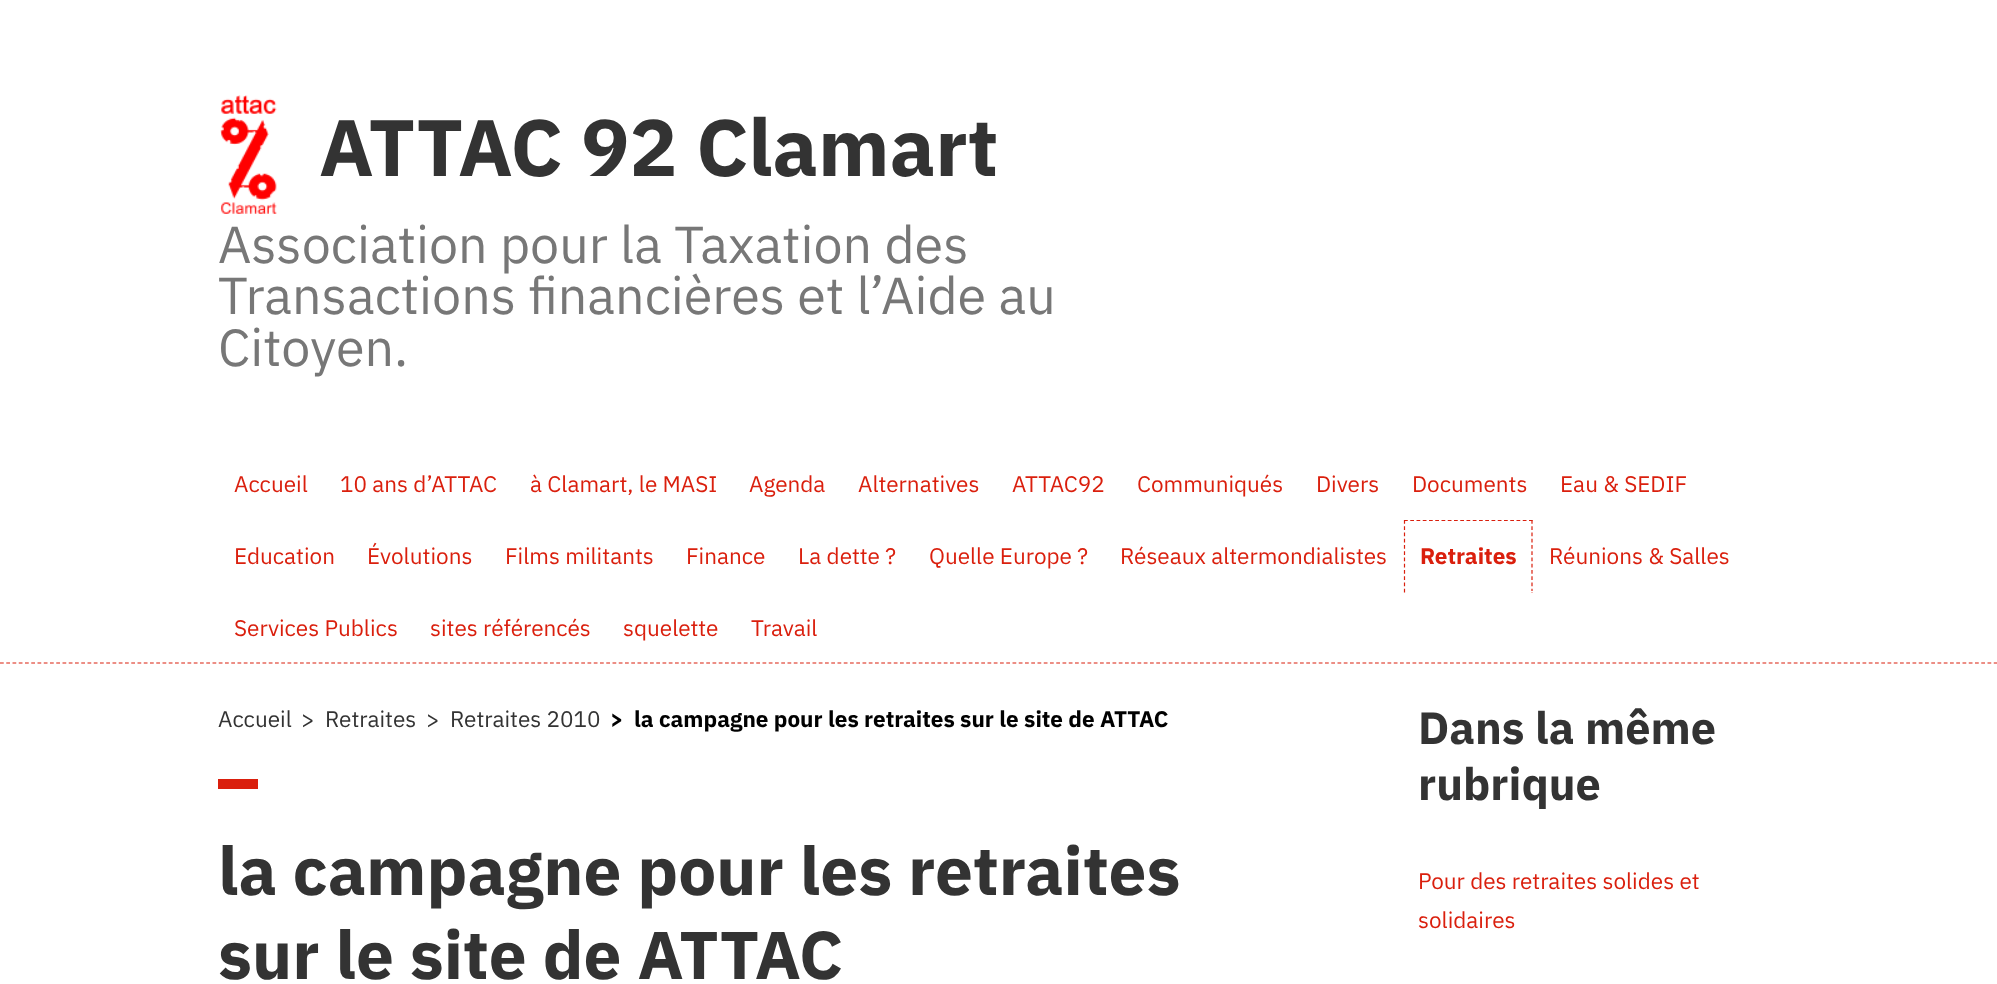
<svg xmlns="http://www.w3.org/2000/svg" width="1997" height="984">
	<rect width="100%" height="100%" fill="#FFFFFF" />
	<image x="220" y="95" width="57" height="119" href="assets/img1.png" />
	<text x="319" y="176" font-family="IBM Plex Sans" font-size="80" font-weight="700" fill="#333333">ATTAC 92 Clamart</text>
	<g font-family="IBM Plex Sans" font-size="52" fill="#777777">
		<text x="218" y="263">Association pour la Taxation des</text>
		<text x="218" y="314">Transactions financières et l’Aide au</text>
		<text x="218" y="366">Citoyen.</text>
	</g>
	<g font-family="IBM Plex Sans" font-size="22.5" fill="#DA1F0D">
		<text x="234" y="492">Accueil</text>
		<text x="340" y="492">10 ans d’ATTAC</text>
		<text x="530" y="492">à Clamart, le MASI</text>
		<text x="749" y="492">Agenda</text>
		<text x="858" y="492">Alternatives</text>
		<text x="1012" y="492">ATTAC92</text>
		<text x="1137" y="492">Communiqués</text>
		<text x="1316" y="492">Divers</text>
		<text x="1412" y="492">Documents</text>
		<text x="1560" y="492">Eau &amp; SEDIF</text>
		<text x="234" y="564">Education</text>
		<text x="367" y="564">Évolutions</text>
		<text x="505" y="564">Films militants</text>
		<text x="686" y="564">Finance</text>
		<text x="798" y="564">La dette ?</text>
		<text x="929" y="564">Quelle Europe ?</text>
		<text x="1120" y="564">Réseaux altermondialistes</text>
	</g>
	<path d="M1404 520.5H1532.5" fill="none" stroke="#DA1F0D" stroke-width="1.2" stroke-dasharray="3.75 2.5" />
	<path d="M1532 520V592.5" fill="none" stroke="#DA1F0D" stroke-width="1.2" stroke-dasharray="3.75 2.5" />
	<rect x="1531" y="591" width="2" height="1" fill="#FFFFFF" />
	<path d="M1404.5 520V592.5" fill="none" stroke="#DA1F0D" stroke-width="1.2" stroke-dasharray="3.75 2.5" />
	<text x="1420" y="564" font-family="IBM Plex Sans" font-size="22.5" font-weight="700" fill="#DA1F0D">Retraites</text>
	<g font-family="IBM Plex Sans" font-size="22.5" fill="#DA1F0D">
		<text x="1549" y="564">Réunions &amp; Salles</text>
		<text x="234" y="636">Services Publics</text>
		<text x="430" y="636">sites référencés</text>
		<text x="623" y="636">squelette</text>
		<text x="751" y="636">Travail</text>
	</g>
	<path d="M0 663H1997.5" fill="none" stroke="#DA1F0D" stroke-width="1.2" stroke-dasharray="3.75 2.5" />
	<g font-family="IBM Plex Sans" font-size="22.5" fill="#333333">
		<text x="218" y="727">Accueil</text>
		<text x="301" y="727">&gt;</text>
		<text x="325" y="727">Retraites</text>
		<text x="426" y="727">&gt;</text>
		<text x="450" y="727">Retraites 2010</text>
	</g>
	<g font-family="IBM Plex Sans" font-size="22.5" font-weight="700" fill="#000000">
		<text x="610" y="727">&gt;</text>
		<text x="634" y="727">la campagne pour les retraites sur le site de ATTAC</text>
	</g>
	<rect x="218" y="779" width="40" height="10" fill="#DA1F0D" />
	<g font-family="IBM Plex Sans" font-size="67.5" font-weight="700" fill="#333333">
		<text x="218" y="895">la campagne pour les retraites</text>
		<text x="218" y="979">sur le site de ATTAC</text>
	</g>
	<g font-family="IBM Plex Sans" font-size="45" font-weight="700" fill="#333333">
		<text x="1418" y="744">Dans la même</text>
		<text x="1418" y="800">rubrique</text>
	</g>
	<g font-family="IBM Plex Sans" font-size="22.5" fill="#DA1F0D">
		<text x="1418" y="889">Pour des retraites solides et</text>
		<text x="1418" y="928">solidaires</text>
	</g>
</svg>
